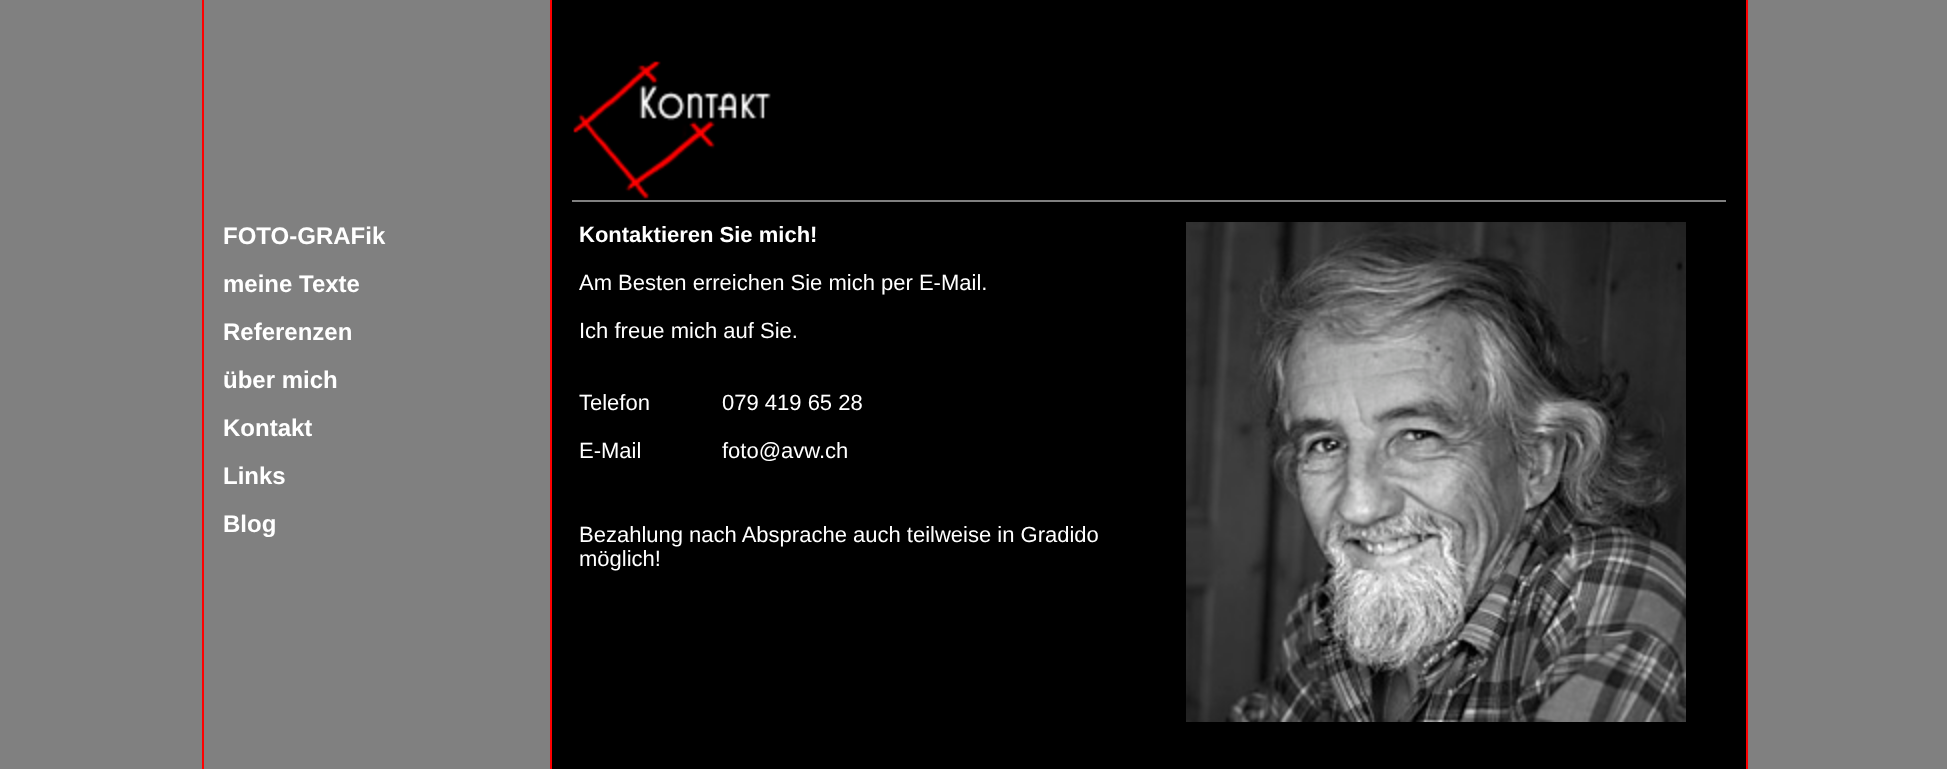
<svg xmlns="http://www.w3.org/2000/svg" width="1947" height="769">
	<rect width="100%" height="100%" fill="#808080" />
	<rect x="552" y="0" width="1194" height="769" fill="#000000" />
	<rect x="202" y="0" width="2" height="769" fill="#FF0000" />
	<rect x="550" y="0" width="2" height="769" fill="#FF0000" />
	<rect x="1746" y="0" width="2" height="769" fill="#FF0000" />
	<image x="573" y="61" width="198" height="138" href="assets/img1.png" />
	<rect x="572" y="200" width="1154" height="2" fill="#808080" />
	<g font-family="Liberation Sans" font-size="24" font-weight="700" fill="#FFFFFF">
		<text x="223" y="244">FOTO-GRAFik</text>
		<text x="223" y="292">meine Texte</text>
		<text x="223" y="340">Referenzen</text>
		<text x="223" y="388">über mich</text>
		<text x="223" y="436">Kontakt</text>
		<text x="223" y="484">Links</text>
		<text x="223" y="532">Blog</text>
	</g>
	<text x="579" y="242" font-family="Liberation Sans" font-size="22" font-weight="700" fill="#FFFFFF">Kontaktieren Sie mich!</text>
	<g font-family="Liberation Sans" font-size="22" fill="#FFFFFF">
		<text x="579" y="290">Am Besten erreichen Sie mich per E-Mail.</text>
		<text x="579" y="338">Ich freue mich auf Sie.</text>
		<text x="579" y="410">Telefon</text>
		<text x="722" y="410">079 419 65 28</text>
		<text x="579" y="458">E-Mail</text>
		<text x="722" y="458">foto@avw.ch</text>
		<text x="579" y="542">Bezahlung nach Absprache auch teilweise in Gradido</text>
		<text x="579" y="566">möglich!</text>
	</g>
	<image x="1186" y="222" width="500" height="500" href="assets/img2.png" />
</svg>
